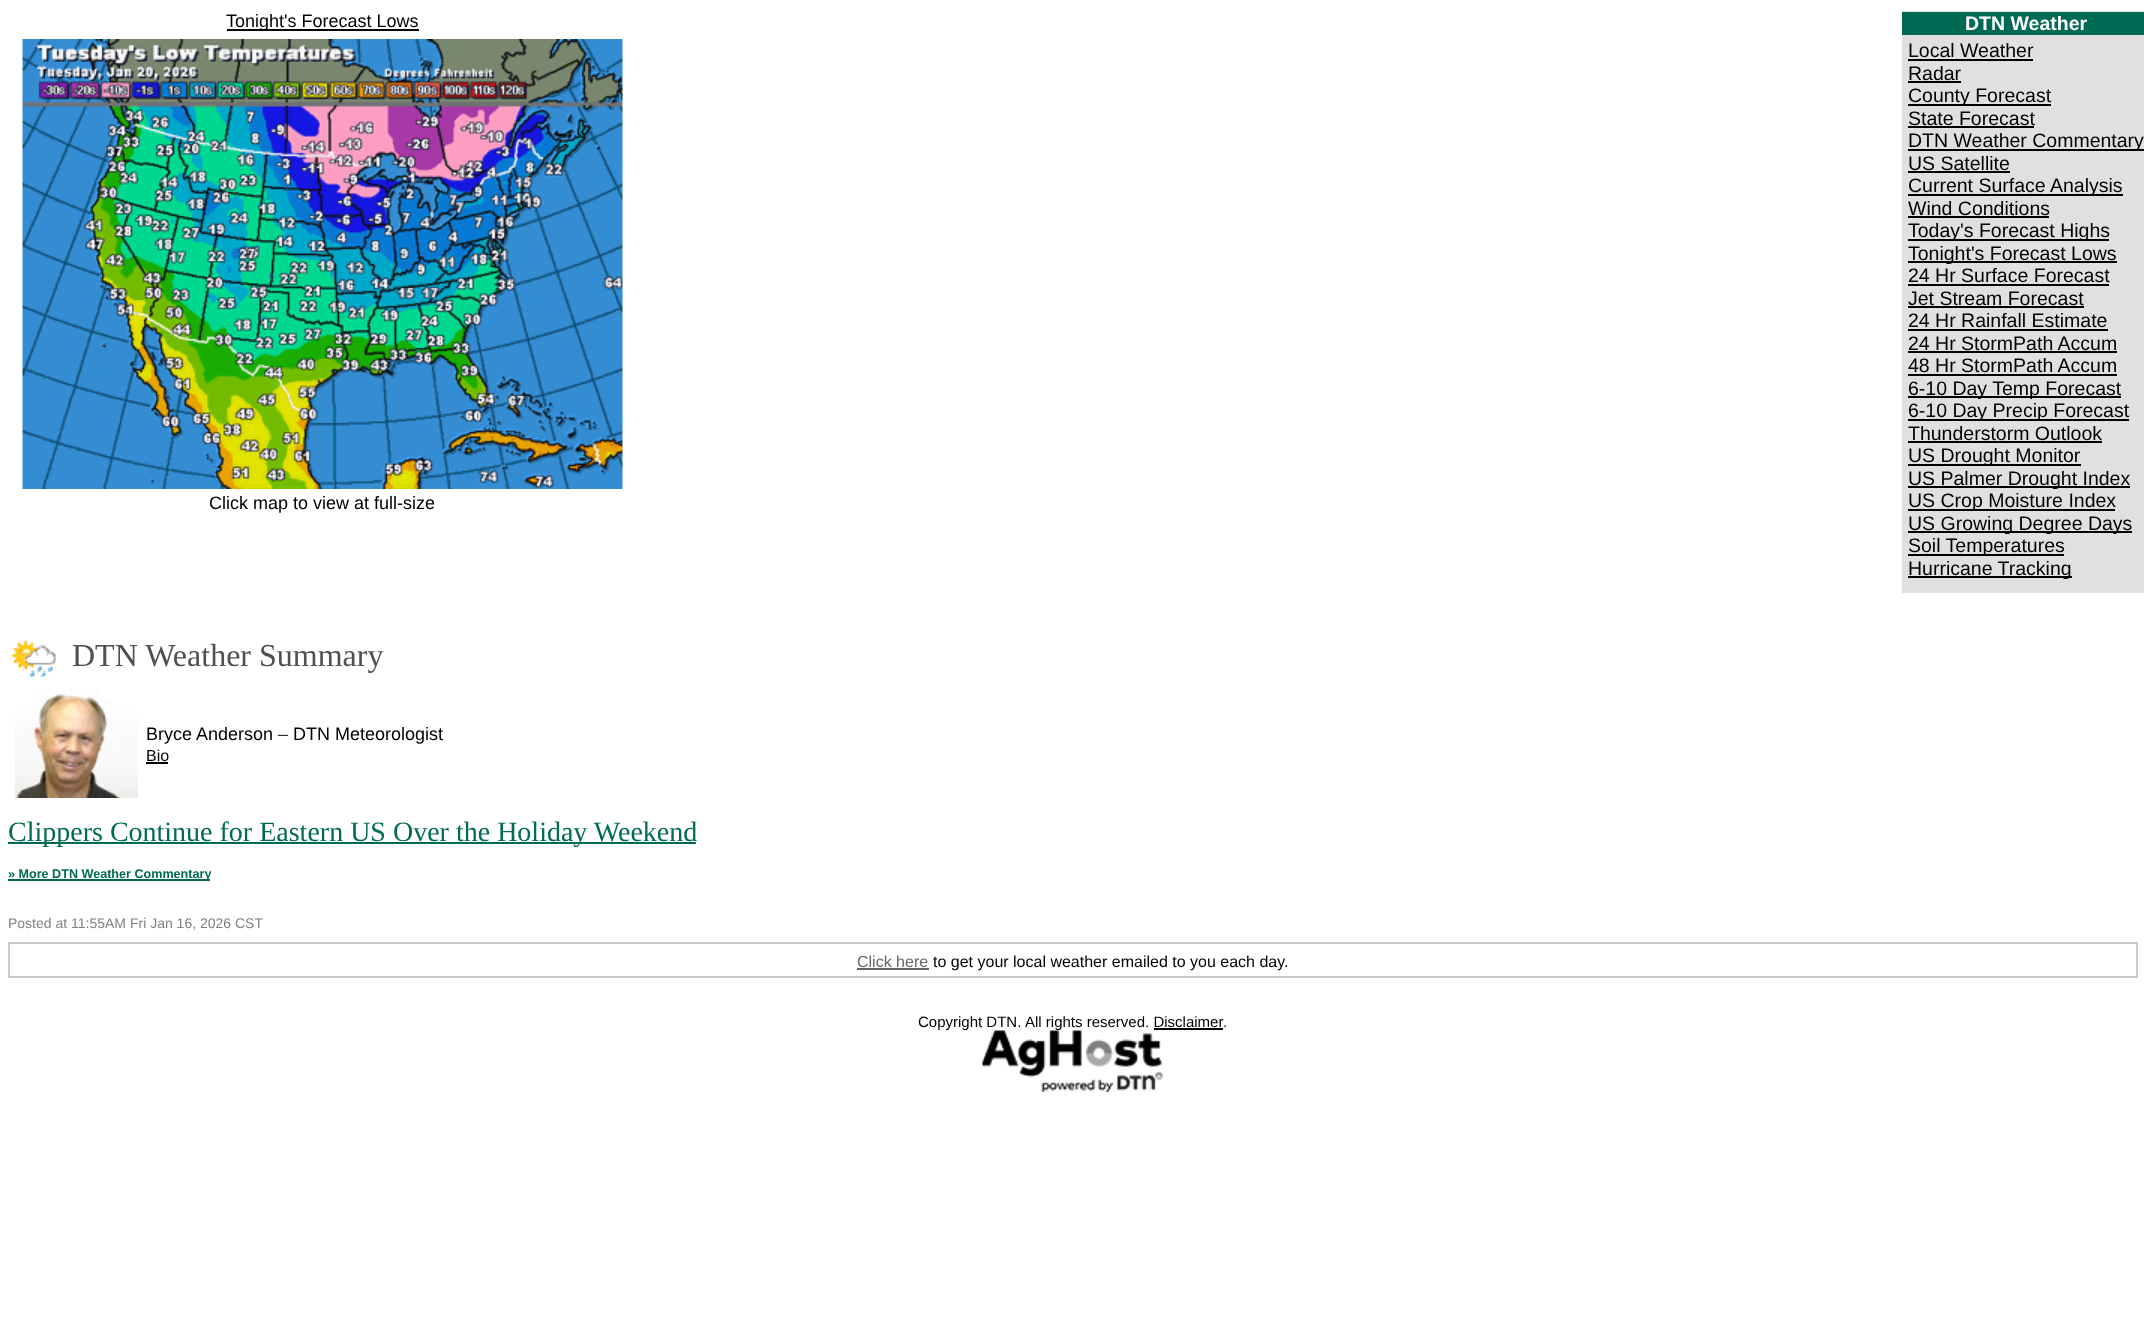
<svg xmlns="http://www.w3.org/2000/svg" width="2144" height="1327">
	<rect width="100%" height="100%" fill="#FFFFFF" />
	<rect x="227" y="29" width="192" height="2" fill="#000000" />
	<text x="226" y="27" font-family="Liberation Sans" font-size="18" fill="#000000">Tonight's Forecast Lows</text>
	<image x="22" y="39" width="601" height="450" href="assets/img1.png" />
	<text x="209" y="509" font-family="Liberation Sans" font-size="18" fill="#000000">Click map to view at full-size</text>
	<rect x="1902" y="11" width="242" height="582" fill="#E0E0E0" />
	<rect x="1902" y="12" width="242" height="23" fill="#006B54" />
	<text x="1965" y="30" font-family="Liberation Sans" font-size="19.5" font-weight="700" fill="#FFFFFF">DTN Weather</text>
	<text x="1908" y="57" font-family="Liberation Sans" font-size="19.5" fill="#000000">Local Weather</text>
	<rect x="1908" y="59" width="125" height="2" fill="#000000" />
	<text x="1908" y="80" font-family="Liberation Sans" font-size="19.5" fill="#000000">Radar</text>
	<rect x="1908" y="81" width="53" height="2" fill="#000000" />
	<rect x="1908" y="104" width="143" height="2" fill="#000000" />
	<g font-family="Liberation Sans" font-size="19.5" fill="#000000">
		<text x="1908" y="102">County Forecast</text>
		<text x="1908" y="125">State Forecast</text>
	</g>
	<rect x="1908" y="126" width="126" height="2" fill="#000000" />
	<rect x="1908" y="149" width="236" height="2" fill="#000000" />
	<g font-family="Liberation Sans" font-size="19.5" fill="#000000">
		<text x="1908" y="147">DTN Weather Commentary</text>
		<text x="1908" y="170">US Satellite</text>
	</g>
	<rect x="1908" y="171" width="102" height="2" fill="#000000" />
	<rect x="1908" y="194" width="215" height="2" fill="#000000" />
	<g font-family="Liberation Sans" font-size="19.5" fill="#000000">
		<text x="1908" y="192">Current Surface Analysis</text>
		<text x="1908" y="215">Wind Conditions</text>
	</g>
	<rect x="1908" y="216" width="141" height="2" fill="#000000" />
	<rect x="1908" y="239" width="201" height="2" fill="#000000" />
	<text x="1908" y="237" font-family="Liberation Sans" font-size="19.5" fill="#000000">Today's Forecast Highs</text>
	<rect x="1908" y="261" width="209" height="2" fill="#000000" />
	<g font-family="Liberation Sans" font-size="19.5" fill="#000000">
		<text x="1908" y="260">Tonight's Forecast Lows</text>
		<text x="1908" y="282">24 Hr Surface Forecast</text>
	</g>
	<rect x="1908" y="284" width="201" height="2" fill="#000000" />
	<text x="1908" y="305" font-family="Liberation Sans" font-size="19.5" fill="#000000">Jet Stream Forecast</text>
	<rect x="1908" y="306" width="176" height="2" fill="#000000" />
	<text x="1908" y="327" font-family="Liberation Sans" font-size="19.5" fill="#000000">24 Hr Rainfall Estimate</text>
	<rect x="1908" y="329" width="200" height="2" fill="#000000" />
	<text x="1908" y="350" font-family="Liberation Sans" font-size="19.5" fill="#000000">24 Hr StormPath Accum</text>
	<rect x="1908" y="351" width="209" height="2" fill="#000000" />
	<text x="1908" y="372" font-family="Liberation Sans" font-size="19.5" fill="#000000">48 Hr StormPath Accum</text>
	<rect x="1908" y="374" width="209" height="2" fill="#000000" />
	<rect x="1908" y="396" width="213" height="2" fill="#000000" />
	<text x="1908" y="395" font-family="Liberation Sans" font-size="19.5" fill="#000000">6-10 Day Temp Forecast</text>
	<rect x="1908" y="419" width="221" height="2" fill="#000000" />
	<g font-family="Liberation Sans" font-size="19.5" fill="#000000">
		<text x="1908" y="417">6-10 Day Precip Forecast</text>
		<text x="1908" y="440">Thunderstorm Outlook</text>
	</g>
	<rect x="1908" y="441" width="194" height="2" fill="#000000" />
	<rect x="1908" y="464" width="173" height="2" fill="#000000" />
	<text x="1908" y="462" font-family="Liberation Sans" font-size="19.5" fill="#000000">US Drought Monitor</text>
	<rect x="1908" y="486" width="222" height="2" fill="#000000" />
	<text x="1908" y="485" font-family="Liberation Sans" font-size="19.5" fill="#000000">US Palmer Drought Index</text>
	<rect x="1908" y="509" width="207" height="2" fill="#000000" />
	<text x="1908" y="507" font-family="Liberation Sans" font-size="19.5" fill="#000000">US Crop Moisture Index</text>
	<rect x="1908" y="531" width="224" height="2" fill="#000000" />
	<text x="1908" y="530" font-family="Liberation Sans" font-size="19.5" fill="#000000">US Growing Degree Days</text>
	<rect x="1908" y="554" width="156" height="2" fill="#000000" />
	<text x="1908" y="552" font-family="Liberation Sans" font-size="19.5" fill="#000000">Soil Temperatures</text>
	<rect x="1908" y="576" width="164" height="2" fill="#000000" />
	<text x="1908" y="575" font-family="Liberation Sans" font-size="19.5" fill="#000000">Hurricane Tracking</text>
	<image x="11" y="640" width="45" height="37" href="assets/img2.png" />
	<text x="72" y="666" font-family="Liberation Serif" font-size="32" fill="#505050">DTN Weather Summary</text>
	<image x="15" y="688" width="123" height="110" href="assets/img3.png" />
	<text x="146" y="740" font-family="Liberation Sans" font-size="18" fill="#000000">Bryce Anderson</text>
	<text x="278" y="740" font-family="Liberation Serif" font-size="20" fill="#000000">–</text>
	<text x="293" y="740" font-family="Liberation Sans" font-size="18" fill="#000000">DTN Meteorologist</text>
	<text x="146" y="761" font-family="Liberation Sans" font-size="16" fill="#000000">Bio</text>
	<rect x="146" y="762" width="22" height="2" fill="#000000" />
	<rect x="8" y="842" width="688" height="2" fill="#006B54" />
	<text x="8" y="841" font-family="Liberation Serif" font-size="28" fill="#006B54">Clippers Continue for Eastern US Over the Holiday Weekend</text>
	<rect x="8" y="879" width="202" height="2" fill="#006B54" />
	<text x="8" y="878" font-family="Liberation Sans" font-size="12.6" font-weight="700" fill="#006B54">» More DTN Weather Commentary</text>
	<text x="8" y="928" font-family="Liberation Sans" font-size="14" fill="#808080">Posted at 11:55AM Fri Jan 16, 2026 CST</text>
	<rect x="9" y="943" width="2128" height="34" fill="none" stroke="#CCCCCC" stroke-width="2" />
	<text x="857" y="967" font-family="Liberation Sans" font-size="16" fill="#666666">Click here</text>
	<rect x="857" y="968" width="72" height="2" fill="#666666" />
	<text x="933" y="967" font-family="Liberation Sans" font-size="16" fill="#000000">to get your local weather emailed to you each day.</text>
	<g font-family="Liberation Sans" font-size="15" fill="#000000">
		<text x="918" y="1027">Copyright DTN.</text>
		<text x="1025" y="1027">All rights reserved. Disclaimer</text>
		<text x="1223" y="1027">.</text>
	</g>
	<rect x="1154" y="1028" width="69" height="2" fill="#000000" />
	<image x="982" y="1030" width="181" height="62" href="assets/img4.png" />
</svg>
